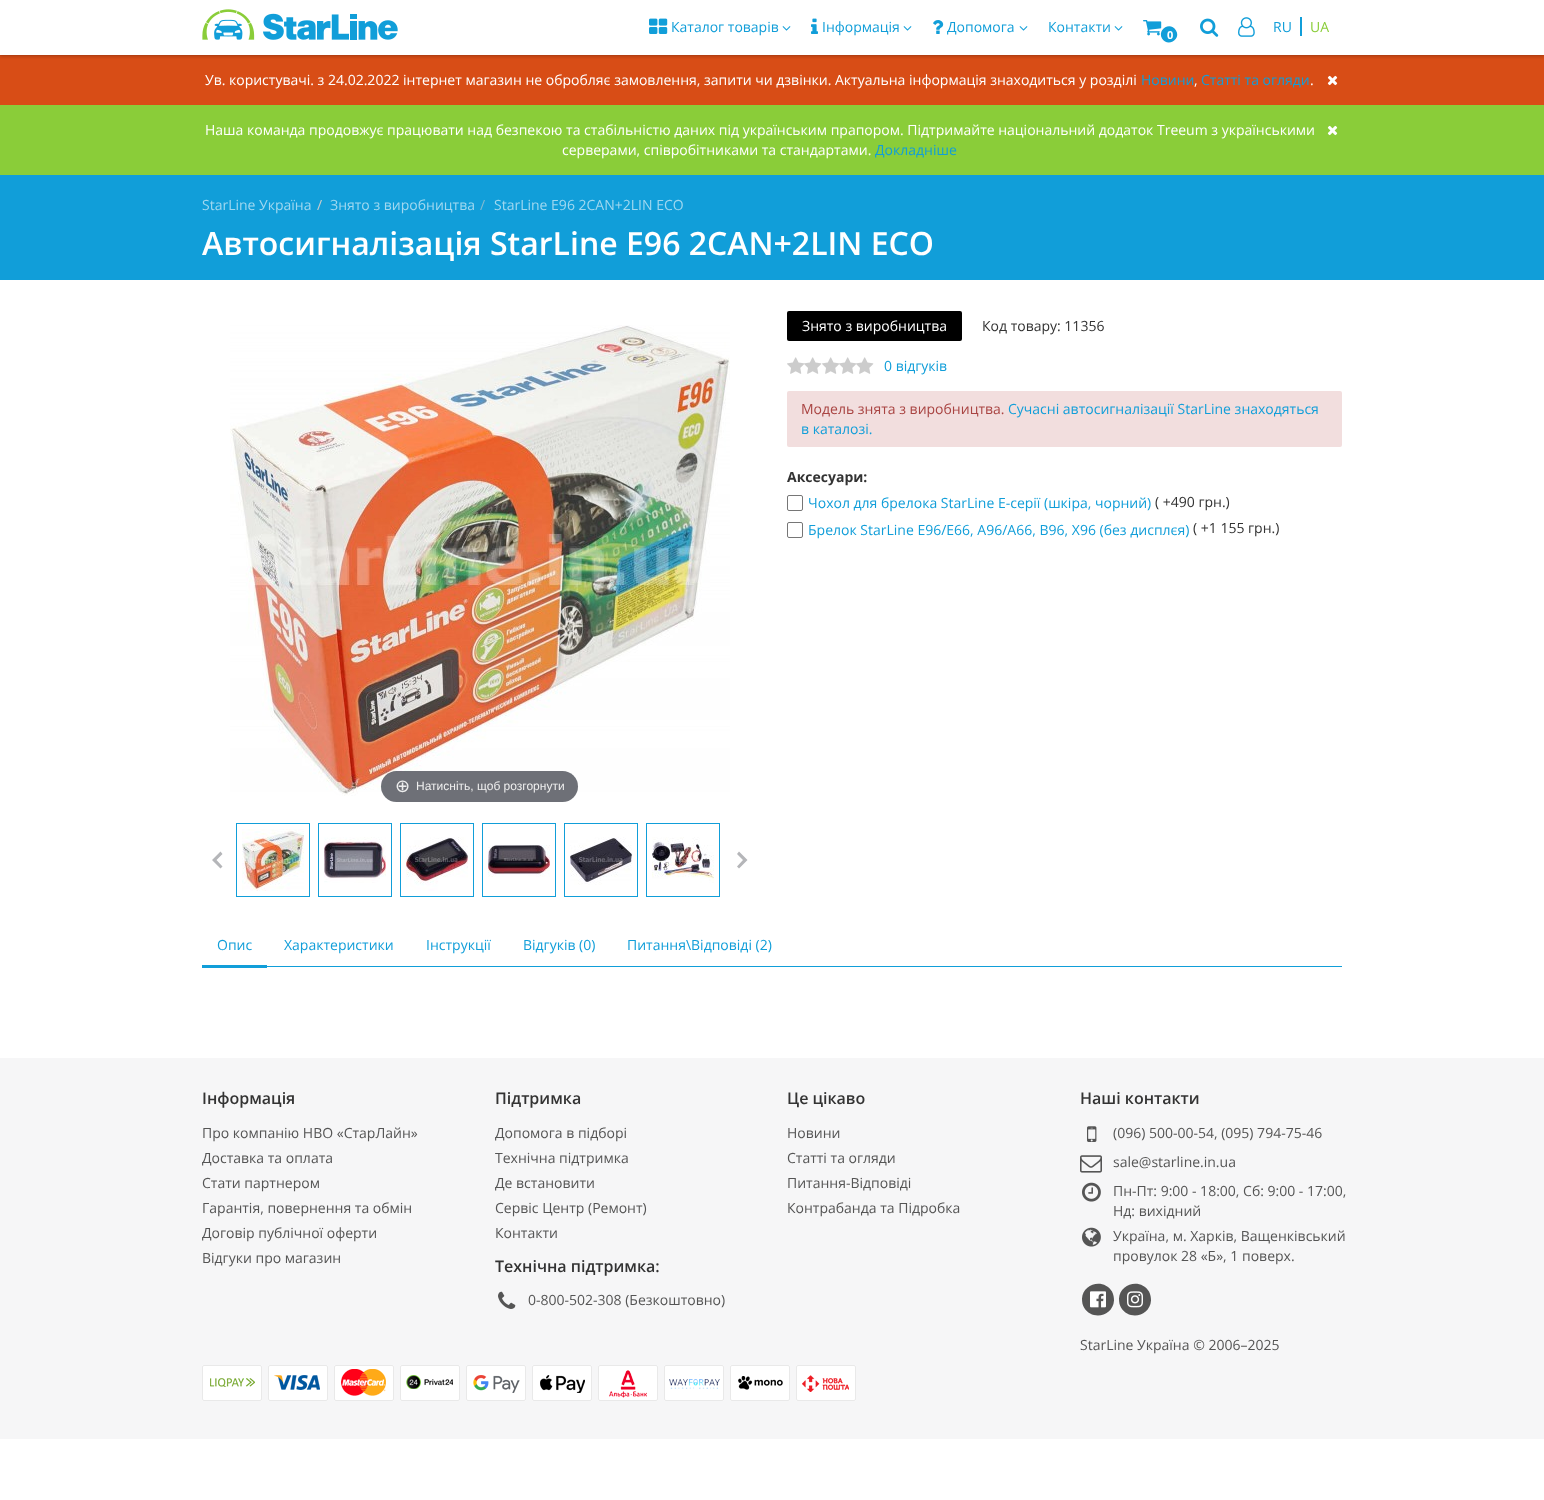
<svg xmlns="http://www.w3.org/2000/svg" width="1544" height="1500">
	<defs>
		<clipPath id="clip1"><rect x="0" y="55" width="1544" height="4" /></clipPath>
	</defs>
	<rect width="100%" height="100%" fill="#FFFFFF" />
	<rect x="-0.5" y="-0.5" width="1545" height="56" fill="none" stroke="#CD4915" />
	<rect x="0" y="56" width="1544" height="49" fill="#D84D16" />
	<g clip-path="url(#clip1)">
		<rect x="0" y="2" width="1544" height="55" fill="#000000" fill-opacity="0.15" filter="blur(1.5px)" />
	</g>
	<image x="202" y="9" width="196" height="31" href="assets/img1.png" />
	<image x="649" y="18" width="19" height="16" href="assets/img2.png" />
	<text x="671" y="32" font-family="Open Sans" font-size="14" fill="#119ED9">Каталог товарів</text>
	<image x="782" y="26" width="9" height="5" href="assets/img3.png" />
	<image x="811" y="18" width="7" height="16" href="assets/img4.png" />
	<text x="822" y="32" font-family="Open Sans" font-size="14" fill="#119ED9">Інформація</text>
	<image x="903" y="26" width="9" height="5" href="assets/img3.png" />
	<image x="933" y="20" width="11" height="14" href="assets/img5.png" />
	<text x="947" y="32" font-family="Open Sans" font-size="14" fill="#119ED9">Допомога</text>
	<image x="1019" y="26" width="9" height="5" href="assets/img3.png" />
	<text x="1048" y="32" font-family="Open Sans" font-size="14" fill="#119ED9">Контакти</text>
	<image x="1114" y="26" width="9" height="5" href="assets/img3.png" />
	<image x="1200" y="18" width="19" height="19" href="assets/img6.png" />
	<image x="1238" y="17" width="17" height="20" href="assets/img7.png" />
	<text x="1273" y="32" font-family="Open Sans" font-size="14" fill="#119ED9">RU</text>
	<rect x="1300" y="17" width="2" height="19" fill="#119ED9" />
	<text x="1310" y="32" font-family="Open Sans" font-size="14" fill="#8ACD39">UA</text>
	<image x="1143" y="20" width="19" height="16" href="assets/img8.png" />
	<path d="M1176 30.5C1181.5 39.5 1167.5 47.5 1162 38.5C1157 29 1170.5 21 1176 30.5Z" fill="#119ED9" />
	<text x="1167" y="39" font-family="Open Sans" font-size="11" font-weight="700" fill="#FFFFFF">0</text>
	<text x="205" y="85" font-family="Open Sans" font-size="14" fill="#FFFFFF">Ув. користувачі. з 24.02.2022 інтернет магазин не обробляє замовлення, запити чи дзвінки. Актуальна інформація знаходиться у розділі</text>
	<text x="1141" y="85" font-family="Open Sans" font-size="14" fill="#119ED9">Новини</text>
	<text x="1194" y="85" font-family="Open Sans" font-size="14" fill="#FFFFFF">,</text>
	<text x="1201" y="85" font-family="Open Sans" font-size="14" fill="#119ED9">Статті та огляди</text>
	<text x="1310" y="85" font-family="Open Sans" font-size="14" fill="#FFFFFF">.</text>
	<image x="1327" y="75" width="11" height="11" href="assets/img9.png" />
	<rect x="0" y="105" width="1544" height="70" fill="#8ACD39" />
	<g font-family="Open Sans" font-size="14" fill="#FFFFFF">
		<text x="205" y="135">Наша команда продовжує працювати над безпекою та стабільністю даних під українським прапором. Підтримайте національний додаток Treeum з українськими</text>
		<text x="562" y="155">серверами, співробітниками та стандартами.</text>
	</g>
	<text x="875" y="155" font-family="Open Sans" font-size="14" fill="#119ED9">Докладнiше</text>
	<image x="1327" y="125" width="11" height="11" href="assets/img10.png" />
	<rect x="0" y="175" width="1544" height="105" fill="#119ED9" />
	<text x="202" y="210" font-family="Open Sans" font-size="14" fill="#A0D8F0">StarLine Україна</text>
	<text x="317" y="210" font-family="Open Sans" font-size="14" fill="#CCCCCC">/</text>
	<text x="330" y="210" font-family="Open Sans" font-size="14" fill="#A0D8F0">Знято з виробництва</text>
	<text x="480" y="210" font-family="Open Sans" font-size="14" fill="#81BAD1">/</text>
	<text x="494" y="210" font-family="Open Sans" font-size="14" fill="#A0D8F0">StarLine E96 2CAN+2LIN ECO</text>
	<text x="202" y="255" font-family="Open Sans" font-size="32" font-weight="600" fill="#FFFFFF">Автосигналізація StarLine E96 2CAN+2LIN ECO</text>
	<rect x="787" y="311" width="175" height="30" rx="2" fill="#000000" />
	<text x="802" y="331" font-family="Open Sans" font-size="14" fill="#FFFFFF">Знято з виробництва</text>
	<text x="982" y="331" font-family="Open Sans" font-size="14" fill="#333333">Код товару: 11356</text>
	<image x="787" y="357" width="18" height="17" href="assets/img11.png" />
	<image x="804" y="357" width="18" height="17" href="assets/img12.png" />
	<image x="822" y="357" width="18" height="17" href="assets/img11.png" />
	<image x="839" y="357" width="18" height="17" href="assets/img12.png" />
	<image x="856" y="357" width="18" height="17" href="assets/img12.png" />
	<text x="884" y="371" font-family="Open Sans" font-size="14" fill="#119ED9">0 відгуків</text>
	<rect x="787" y="391" width="555" height="56" rx="2" fill="#F2DEDE" />
	<text x="801" y="414" font-family="Open Sans" font-size="14" fill="#A94442">Модель знята з виробництва.</text>
	<g font-family="Open Sans" font-size="14" fill="#119ED9">
		<text x="1008" y="414">Сучасні автосигналізації StarLine знаходяться</text>
		<text x="801" y="434">в каталозі.</text>
	</g>
	<text x="787" y="482" font-family="Open Sans" font-size="14" font-weight="700" fill="#333333">Аксесуари:</text>
	<rect x="787.5" y="495.5" width="15" height="15" rx="1.5" fill="none" stroke="#767676" />
	<text x="808" y="508" font-family="Open Sans" font-size="14" fill="#119ED9">Чохол для брелока StarLine E-серії (шкіра, чорний)</text>
	<text x="1155" y="507" font-family="Open Sans" font-size="14" fill="#333333">( +490 грн.)</text>
	<rect x="787.5" y="522.5" width="15" height="15" rx="1.5" fill="none" stroke="#767676" />
	<text x="808" y="535" font-family="Open Sans" font-size="14" fill="#119ED9">Брелок StarLine E96/E66, A96/A66, B96, X96 (без дисплєя)</text>
	<text x="1193" y="533" font-family="Open Sans" font-size="14" fill="#333333">( +1 155 грн.)</text>
	<image x="230" y="325" width="500" height="471" href="assets/img13.png" />
	<rect x="381" y="771" width="197" height="31" rx="15.5" fill="#31333D" fill-opacity="0.7" />
	<text x="395" y="792" font-family="DejaVu Sans" font-size="18" fill="#EEEEEE">⊕</text>
	<text x="416" y="790" font-family="Liberation Sans" font-size="12" fill="#EEEEEE">Натисніть, щоб розгорнути</text>
	<path d="M212 860L220.5 851.5L222.5 854L216.5 860ZM220.5 868.5L212 860H216.5L222.5 866.5Z" fill="#B5B6B9" />
	<rect x="236.5" y="823.5" width="73" height="73" fill="none" stroke="#119ED9" />
	<image x="242" y="829" width="62" height="62" href="assets/img14.png" />
	<rect x="318.5" y="823.5" width="73" height="73" fill="none" stroke="#119ED9" />
	<image x="324" y="837" width="62" height="46" href="assets/img15.png" />
	<rect x="400.5" y="823.5" width="73" height="73" fill="none" stroke="#119ED9" />
	<image x="406" y="837" width="62" height="54" href="assets/img16.png" />
	<rect x="482.5" y="823.5" width="73" height="73" fill="none" stroke="#119ED9" />
	<image x="488" y="845" width="62" height="32" href="assets/img17.png" />
	<rect x="564.5" y="823.5" width="73" height="73" fill="none" stroke="#119ED9" />
	<image x="570" y="837" width="62" height="48" href="assets/img18.png" />
	<rect x="646.5" y="823.5" width="73" height="73" fill="none" stroke="#119ED9" />
	<image x="652" y="837" width="62" height="46" href="assets/img19.png" />
	<path d="M747.5 860L739 868.5L737 866.5L743 860ZM739 851.5L747.5 860H743L737 854Z" fill="#B5B6B9" />
	<rect x="267" y="966" width="1075" height="1" fill="#119ED9" />
	<rect x="202" y="965" width="65" height="3" fill="#119ED9" />
	<g font-family="Open Sans" font-size="14" fill="#119ED9">
		<text x="217" y="950">Опис</text>
		<text x="284" y="950">Характеристики</text>
		<text x="426" y="950">Інструкції</text>
		<text x="523" y="950">Відгуків (0)</text>
		<text x="627" y="950">Питання\Відповіді (2)</text>
	</g>
	<rect x="0" y="1058" width="1544" height="381" fill="#F6F6F7" />
	<text x="202" y="1104" font-family="Open Sans" font-size="16" font-weight="600" fill="#333333">Інформація</text>
	<g font-family="Open Sans" font-size="14" fill="#555555">
		<text x="202" y="1138">Про компанію НВО «СтарЛайн»</text>
		<text x="202" y="1163">Доставка та оплата</text>
		<text x="202" y="1188">Стати партнером</text>
		<text x="202" y="1213">Гарантія, повернення та обмін</text>
		<text x="202" y="1238">Договір публічної оферти</text>
		<text x="202" y="1263">Відгуки про магазин</text>
	</g>
	<text x="495" y="1104" font-family="Open Sans" font-size="16" font-weight="600" fill="#333333">Підтримка</text>
	<g font-family="Open Sans" font-size="14" fill="#555555">
		<text x="495" y="1138">Допомога в підборі</text>
		<text x="495" y="1163">Технічна підтримка</text>
		<text x="495" y="1188">Де встановити</text>
		<text x="495" y="1213">Сервіс Центр (Ремонт)</text>
		<text x="495" y="1238">Контакти</text>
	</g>
	<text x="495" y="1272" font-family="Open Sans" font-size="16" font-weight="600" fill="#333333">Технічна підтримка:</text>
	<image x="498" y="1291" width="18" height="18" href="assets/img20.png" />
	<text x="528" y="1305" font-family="Open Sans" font-size="14" fill="#555555">0-800-502-308 (Безкоштовно)</text>
	<text x="787" y="1104" font-family="Open Sans" font-size="16" font-weight="600" fill="#333333">Це цікаво</text>
	<g font-family="Open Sans" font-size="14" fill="#555555">
		<text x="787" y="1138">Новини</text>
		<text x="787" y="1163">Статті та огляди</text>
		<text x="787" y="1188">Питання-Відповіді</text>
		<text x="787" y="1213">Контрабанда та Підробка</text>
	</g>
	<text x="1080" y="1104" font-family="Open Sans" font-size="16" font-weight="600" fill="#333333">Наші контакти</text>
	<image x="1087" y="1126" width="10" height="16" href="assets/img21.png" />
	<text x="1113" y="1138" font-family="Open Sans" font-size="14" fill="#555555">(096) 500-00-54, (095) 794-75-46</text>
	<image x="1080" y="1155" width="22" height="18" href="assets/img22.png" />
	<text x="1113" y="1167" font-family="Open Sans" font-size="14" fill="#555555">sale@starline.in.ua</text>
	<image x="1082" y="1182" width="19" height="20" href="assets/img23.png" />
	<g font-family="Open Sans" font-size="14" fill="#555555">
		<text x="1113" y="1196">Пн-Пт: 9:00 - 18:00, Сб: 9:00 - 17:00,</text>
		<text x="1113" y="1216">Нд: вихідний</text>
	</g>
	<image x="1082" y="1227" width="19" height="20" href="assets/img24.png" />
	<g font-family="Open Sans" font-size="14" fill="#555555">
		<text x="1113" y="1241">Україна, м. Харків, Ващенківський</text>
		<text x="1113" y="1261">провулок 28 «Б», 1 поверх.</text>
	</g>
	<path d="M1112 1291.5C1113.5 1294.5 1114 1297.5 1114 1300.5C1113 1316.5 1092 1321 1084 1307.5C1082.5 1305 1082 1302 1082 1298.5C1083 1283 1104 1278 1112 1291.5Z" fill="#555555" />
	<image x="1090" y="1291" width="16" height="17" href="assets/img25.png" />
	<path d="M1149 1291.5C1150.5 1294.5 1151 1297.5 1151 1300.5C1150 1316.5 1129 1321 1121 1307.5C1119.5 1305 1119 1302 1119 1298.5C1120 1283 1141 1278 1149 1291.5Z" fill="#555555" />
	<image x="1127" y="1291" width="16" height="17" href="assets/img26.png" />
	<text x="1080" y="1350" font-family="Open Sans" font-size="14" fill="#555555">StarLine Україна © 2006–2025</text>
	<rect x="202" y="1365" width="60" height="36" rx="2" fill="#FFFFFF" />
	<image x="210" y="1378" width="45" height="9" href="assets/img27.png" />
	<rect x="202.5" y="1365.5" width="59" height="35" rx="1.5" fill="none" stroke="#E9E9E9" />
	<rect x="268" y="1365" width="60" height="36" rx="2" fill="#FFFFFF" />
	<image x="274" y="1375" width="46" height="15" href="assets/img28.png" />
	<rect x="268.5" y="1365.5" width="59" height="35" rx="1.5" fill="none" stroke="#E9E9E9" />
	<rect x="334" y="1365" width="60" height="36" rx="2" fill="#FFFFFF" />
	<image x="341" y="1369" width="45" height="27" href="assets/img29.png" />
	<rect x="334.5" y="1365.5" width="59" height="35" rx="1.5" fill="none" stroke="#E9E9E9" />
	<rect x="400" y="1365" width="60" height="36" rx="2" fill="#FFFFFF" />
	<image x="406" y="1375" width="47" height="14" href="assets/img30.png" />
	<rect x="400.5" y="1365.5" width="59" height="35" rx="1.5" fill="none" stroke="#E9E9E9" />
	<rect x="466" y="1365" width="60" height="36" rx="2" fill="#FFFFFF" />
	<image x="473" y="1375" width="47" height="18" href="assets/img31.png" />
	<rect x="466.5" y="1365.5" width="59" height="35" rx="1.5" fill="none" stroke="#E9E9E9" />
	<rect x="532" y="1365" width="60" height="36" rx="2" fill="#FFFFFF" />
	<image x="540" y="1375" width="45" height="18" href="assets/img32.png" />
	<rect x="532.5" y="1365.5" width="59" height="35" rx="1.5" fill="none" stroke="#E9E9E9" />
	<rect x="598" y="1365" width="60" height="36" rx="2" fill="#FFFFFF" />
	<image x="609" y="1370" width="38" height="28" href="assets/img33.png" />
	<rect x="598.5" y="1365.5" width="59" height="35" rx="1.5" fill="none" stroke="#E9E9E9" />
	<rect x="664" y="1365" width="60" height="36" rx="2" fill="#FFFFFF" />
	<image x="669" y="1374" width="51" height="15" href="assets/img34.png" />
	<rect x="664.5" y="1365.5" width="59" height="35" rx="1.5" fill="none" stroke="#E9E9E9" />
	<rect x="730" y="1365" width="60" height="36" rx="2" fill="#FFFFFF" />
	<image x="738" y="1376" width="45" height="14" href="assets/img35.png" />
	<rect x="730.5" y="1365.5" width="59" height="35" rx="1.5" fill="none" stroke="#E9E9E9" />
	<rect x="796" y="1365" width="60" height="36" rx="2" fill="#FFFFFF" />
	<image x="802" y="1375" width="47" height="17" href="assets/img36.png" />
	<rect x="796.5" y="1365.5" width="59" height="35" rx="1.5" fill="none" stroke="#E9E9E9" />
</svg>
